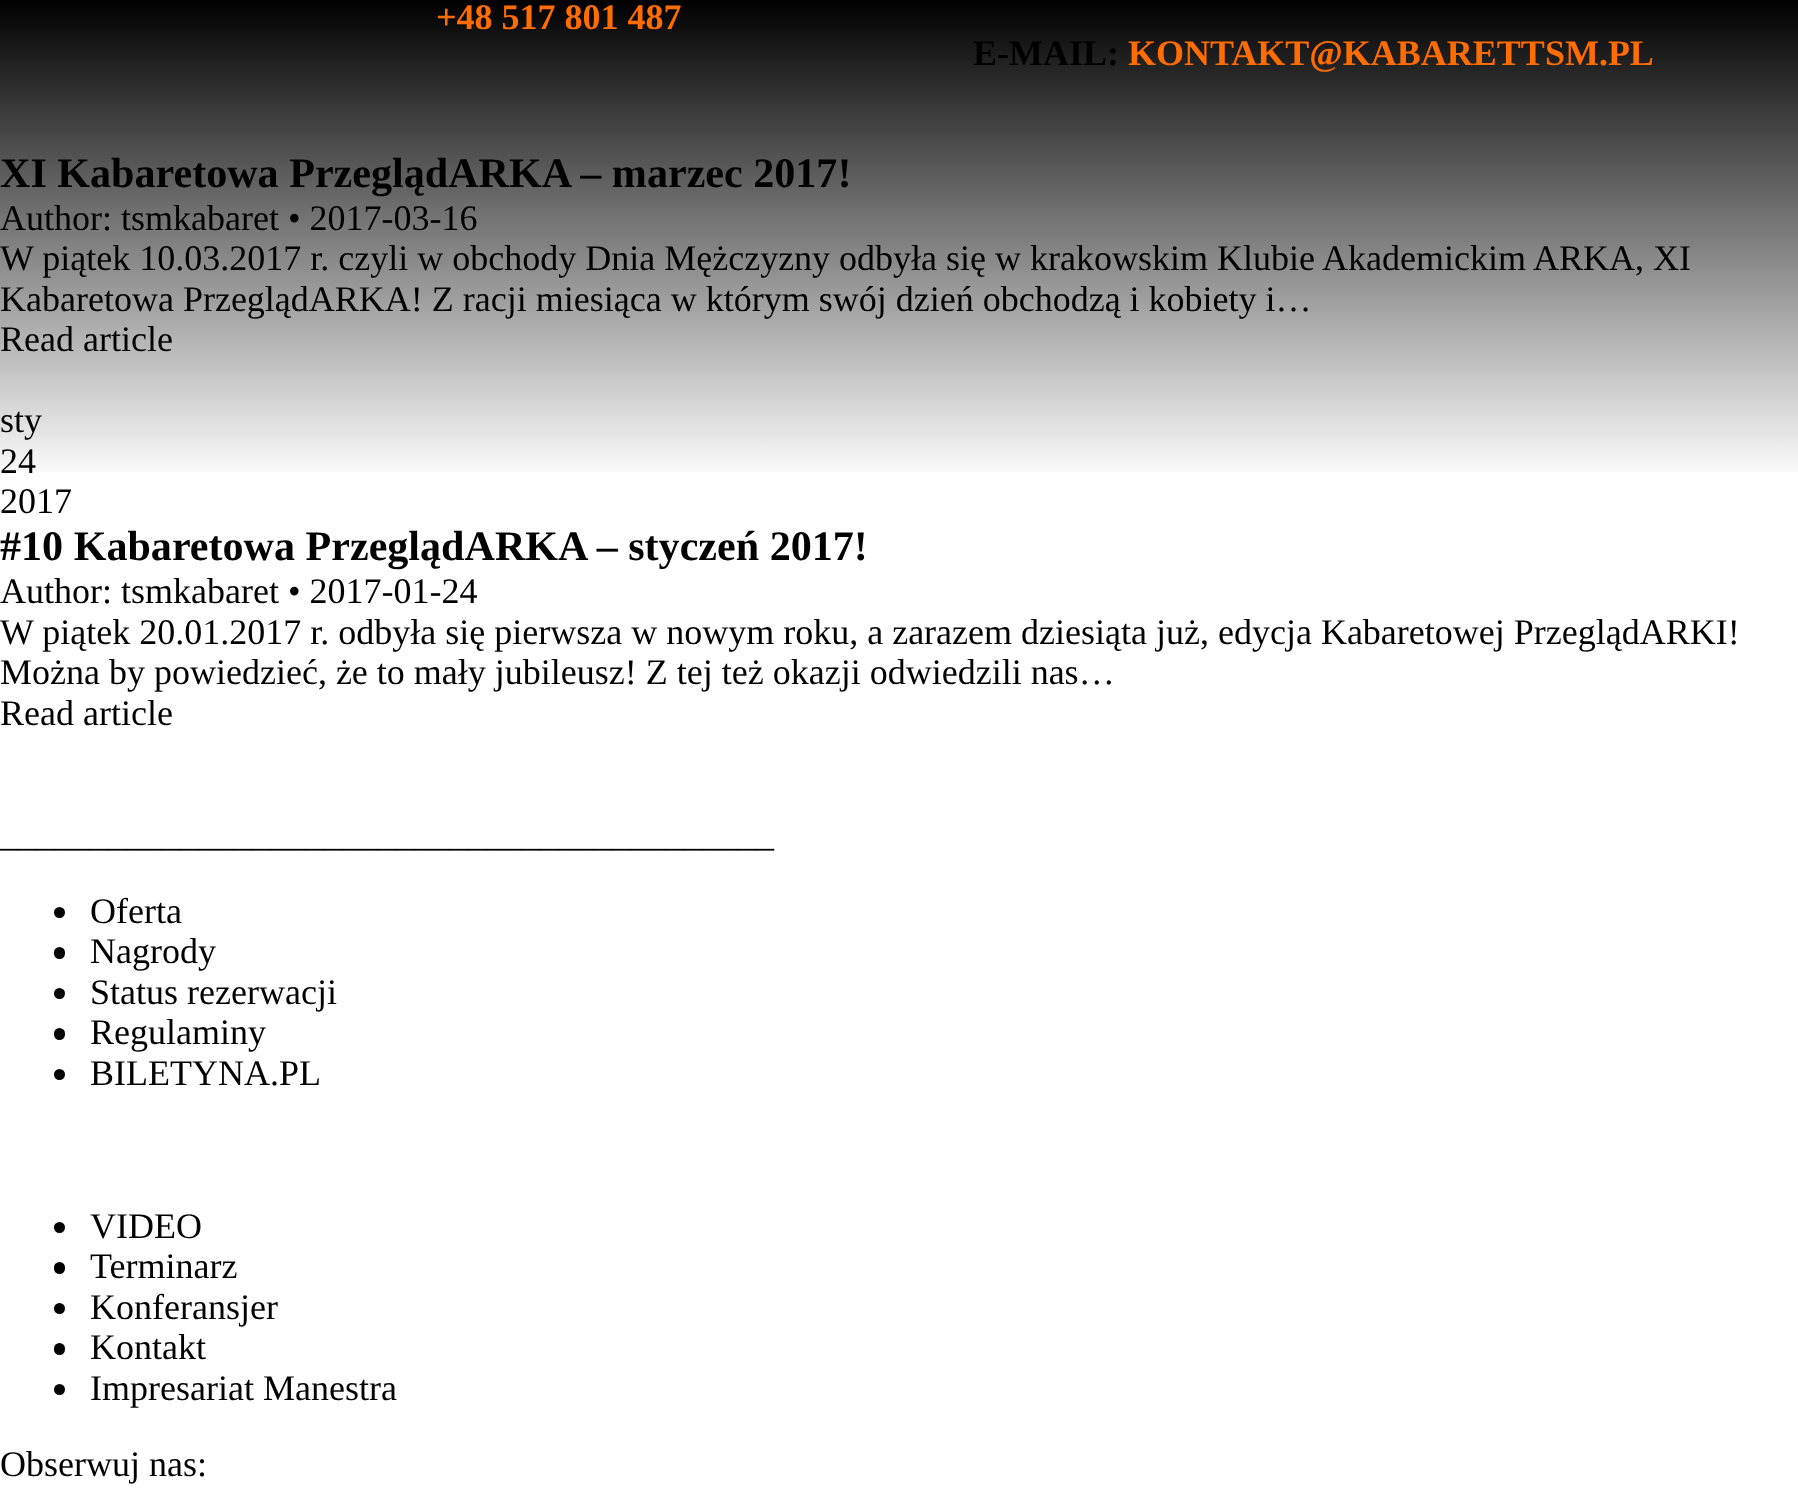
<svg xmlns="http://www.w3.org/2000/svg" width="1798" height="1499">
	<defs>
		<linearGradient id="g1" gradientUnits="userSpaceOnUse" x1="900" y1="0" x2="900" y2="482"><stop offset="0" stop-color="#000000" /><stop offset="1" stop-color="#000000" stop-opacity="0" /></linearGradient>
	</defs>
	<rect width="100%" height="100%" fill="#FFFFFF" />
	<text x="0" y="187" font-family="Liberation Serif" font-size="42.1" font-weight="700" fill="#000000">XI Kabaretowa PrzeglądARKA – marzec 2017!</text>
	<g font-family="Liberation Serif" font-size="36" fill="#000000">
		<text x="0" y="230">Author: tsmkabaret • 2017-03-16</text>
		<text x="0" y="270">W piątek 10.03.2017 r. czyli w obchody Dnia Mężczyzny odbyła się w krakowskim Klubie Akademickim ARKA, XI</text>
		<text x="0" y="311">Kabaretowa PrzeglądARKA! Z racji miesiąca w którym swój dzień obchodzą i kobiety i…</text>
		<text x="0" y="351">Read article</text>
		<text x="0" y="432">sty</text>
		<text x="0" y="473">24</text>
	</g>
	<rect x="0" y="0" width="1798" height="472" fill="url(#g1)" />
	<text x="436" y="29" font-family="Liberation Serif" font-size="36" font-weight="700" fill="#FF6C00">+48 517 801 487</text>
	<text x="973" y="65" font-family="Liberation Serif" font-size="36" font-weight="700" fill="#000000">E-MAIL:</text>
	<text x="1128" y="65" font-family="Liberation Serif" font-size="36" font-weight="700" fill="#FF6C00">KONTAKT@KABARETTSM.PL</text>
	<text x="0" y="513" font-family="Liberation Serif" font-size="36" fill="#000000">2017</text>
	<text x="0" y="560" font-family="Liberation Serif" font-size="42.1" font-weight="700" fill="#000000">#10 Kabaretowa PrzeglądARKA – styczeń 2017!</text>
	<g font-family="Liberation Serif" font-size="36" fill="#000000">
		<text x="0" y="603">Author: tsmkabaret • 2017-01-24</text>
		<text x="0" y="644">W piątek 20.01.2017 r. odbyła się pierwsza w nowym roku, a zarazem dziesiąta już, edycja Kabaretowej PrzeglądARKI!</text>
		<text x="0" y="684">Można by powiedzieć, że to mały jubileusz! Z tej też okazji odwiedzili nas…</text>
		<text x="0" y="725">Read article</text>
		<text x="0" y="846">___________________________________________</text>
	</g>
	<circle cx="59.5" cy="912.5" r="5.5" fill="#000000" />
	<text x="90" y="923" font-family="Liberation Serif" font-size="36" fill="#000000">Oferta</text>
	<rect x="54" y="947" width="11" height="12" rx="5.5" fill="#000000" />
	<text x="90" y="963" font-family="Liberation Serif" font-size="36" fill="#000000">Nagrody</text>
	<circle cx="59.5" cy="993.5" r="5.5" fill="#000000" />
	<text x="90" y="1004" font-family="Liberation Serif" font-size="36" fill="#000000">Status rezerwacji</text>
	<rect x="54" y="1028" width="11" height="12" rx="5.5" fill="#000000" />
	<text x="90" y="1044" font-family="Liberation Serif" font-size="36" fill="#000000">Regulaminy</text>
	<circle cx="59.5" cy="1074.5" r="5.5" fill="#000000" />
	<text x="90" y="1085" font-family="Liberation Serif" font-size="36" fill="#000000">BILETYNA.PL</text>
	<circle cx="59.5" cy="1227.5" r="5.5" fill="#000000" />
	<text x="90" y="1238" font-family="Liberation Serif" font-size="36" fill="#000000">VIDEO</text>
	<rect x="54" y="1262" width="11" height="12" rx="5.5" fill="#000000" />
	<text x="90" y="1278" font-family="Liberation Serif" font-size="36" fill="#000000">Terminarz</text>
	<circle cx="59.5" cy="1308.5" r="5.5" fill="#000000" />
	<text x="90" y="1319" font-family="Liberation Serif" font-size="36" fill="#000000">Konferansjer</text>
	<rect x="54" y="1343" width="11" height="12" rx="5.5" fill="#000000" />
	<text x="90" y="1359" font-family="Liberation Serif" font-size="36" fill="#000000">Kontakt</text>
	<circle cx="59.5" cy="1389.5" r="5.5" fill="#000000" />
	<g font-family="Liberation Serif" font-size="36" fill="#000000">
		<text x="90" y="1400">Impresariat Manestra</text>
		<text x="0" y="1476">Obserwuj nas:</text>
	</g>
</svg>
